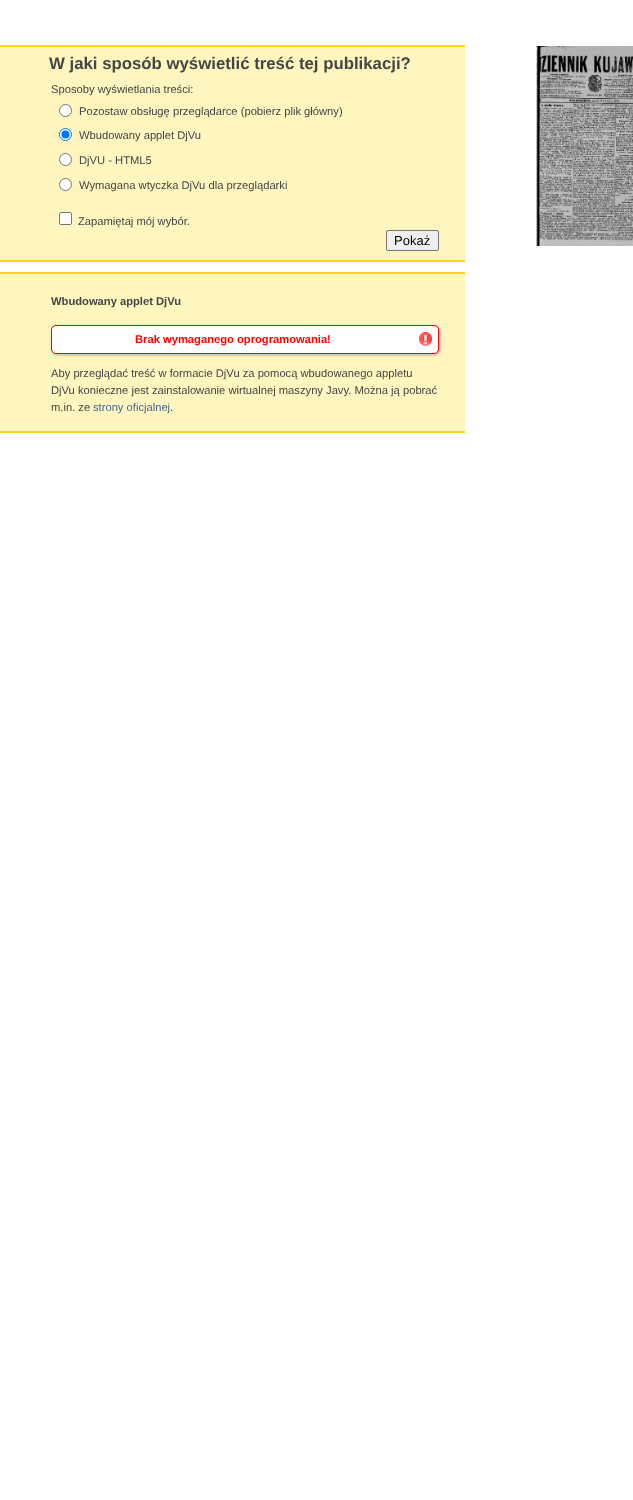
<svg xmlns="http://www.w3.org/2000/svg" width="633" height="1500">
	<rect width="100%" height="100%" fill="#FFFFFF" />
	<rect x="0" y="47" width="465" height="213" fill="#FFF6BF" />
	<rect x="0" y="45" width="465" height="2" fill="#FFD324" />
	<rect x="0" y="260" width="465" height="2" fill="#FFD324" />
	<text x="49" y="69" font-family="Liberation Sans" font-size="16.8" font-weight="700" fill="#454545">W jaki sposób wyświetlić treść tej publikacji?</text>
	<text x="51" y="93" font-family="Liberation Sans" font-size="11.2" fill="#454545">Sposoby wyświetlania treści:</text>
	<circle cx="65.5" cy="110.5" r="6" fill="#FFFFFF" stroke="#767676" />
	<text x="79" y="115" font-family="Liberation Sans" font-size="11.2" fill="#454545">Pozostaw obsługę przeglądarce (pobierz plik główny)</text>
	<circle cx="65.5" cy="134.5" r="6" fill="#FFFFFF" stroke="#0075FF" />
	<circle cx="65.5" cy="134.5" r="4" fill="#0075FF" />
	<text x="79" y="139" font-family="Liberation Sans" font-size="11.2" fill="#454545">Wbudowany applet DjVu</text>
	<circle cx="65.5" cy="159.5" r="6" fill="#FFFFFF" stroke="#767676" />
	<text x="79" y="164" font-family="Liberation Sans" font-size="11.2" fill="#454545">DjVU - HTML5</text>
	<circle cx="65.5" cy="184.5" r="6" fill="#FFFFFF" stroke="#767676" />
	<text x="79" y="189" font-family="Liberation Sans" font-size="11.2" fill="#454545">Wymagana wtyczka DjVu dla przeglądarki</text>
	<rect x="59.5" y="212.5" width="12" height="12" rx="1.5" fill="#FFFFFF" stroke="#767676" />
	<text x="78" y="225" font-family="Liberation Sans" font-size="11.2" fill="#454545">Zapamiętaj mój wybór.</text>
	<rect x="386.5" y="230.5" width="52" height="20" rx="1.5" fill="#EFEFEF" stroke="#767676" />
	<text x="394" y="245" font-family="Liberation Sans" font-size="13" fill="#000000">Pokaż</text>
	<image x="536" y="46" width="97" height="200" href="assets/img1.png" />
	<rect x="0" y="274" width="465" height="157" fill="#FFF6BF" />
	<rect x="0" y="272" width="465" height="2" fill="#FFD324" />
	<rect x="0" y="431" width="465" height="2" fill="#FFD324" />
	<text x="51" y="305" font-family="Liberation Sans" font-size="11.2" font-weight="700" fill="#454545">Wbudowany applet DjVu</text>
	<rect x="52" y="326" width="388" height="29" rx="5" fill="#AAAAAA" filter="blur(1.5px)" />
	<rect x="51.5" y="325.5" width="387" height="28" rx="4.5" fill="#FFFFFF" stroke="#FF0000" />
	<text x="135" y="343" font-family="Liberation Sans" font-size="11.2" font-weight="700" fill="#FF0000">Brak wymaganego oprogramowania!</text>
	<image x="419" y="332" width="13" height="14" href="assets/img2.png" />
	<g font-family="Liberation Sans" font-size="11.2" fill="#454545">
		<text x="51" y="377">Aby przeglądać treść w formacie DjVu za pomocą wbudowanego appletu</text>
		<text x="51" y="394">DjVu konieczne jest zainstalowanie wirtualnej maszyny Javy. Można ją pobrać</text>
		<text x="51" y="411">m.in. ze</text>
	</g>
	<text x="93" y="411" font-family="Liberation Sans" font-size="11.2" fill="#436994">strony oficjalnej</text>
	<text x="170" y="411" font-family="Liberation Sans" font-size="11.2" fill="#454545">.</text>
</svg>
